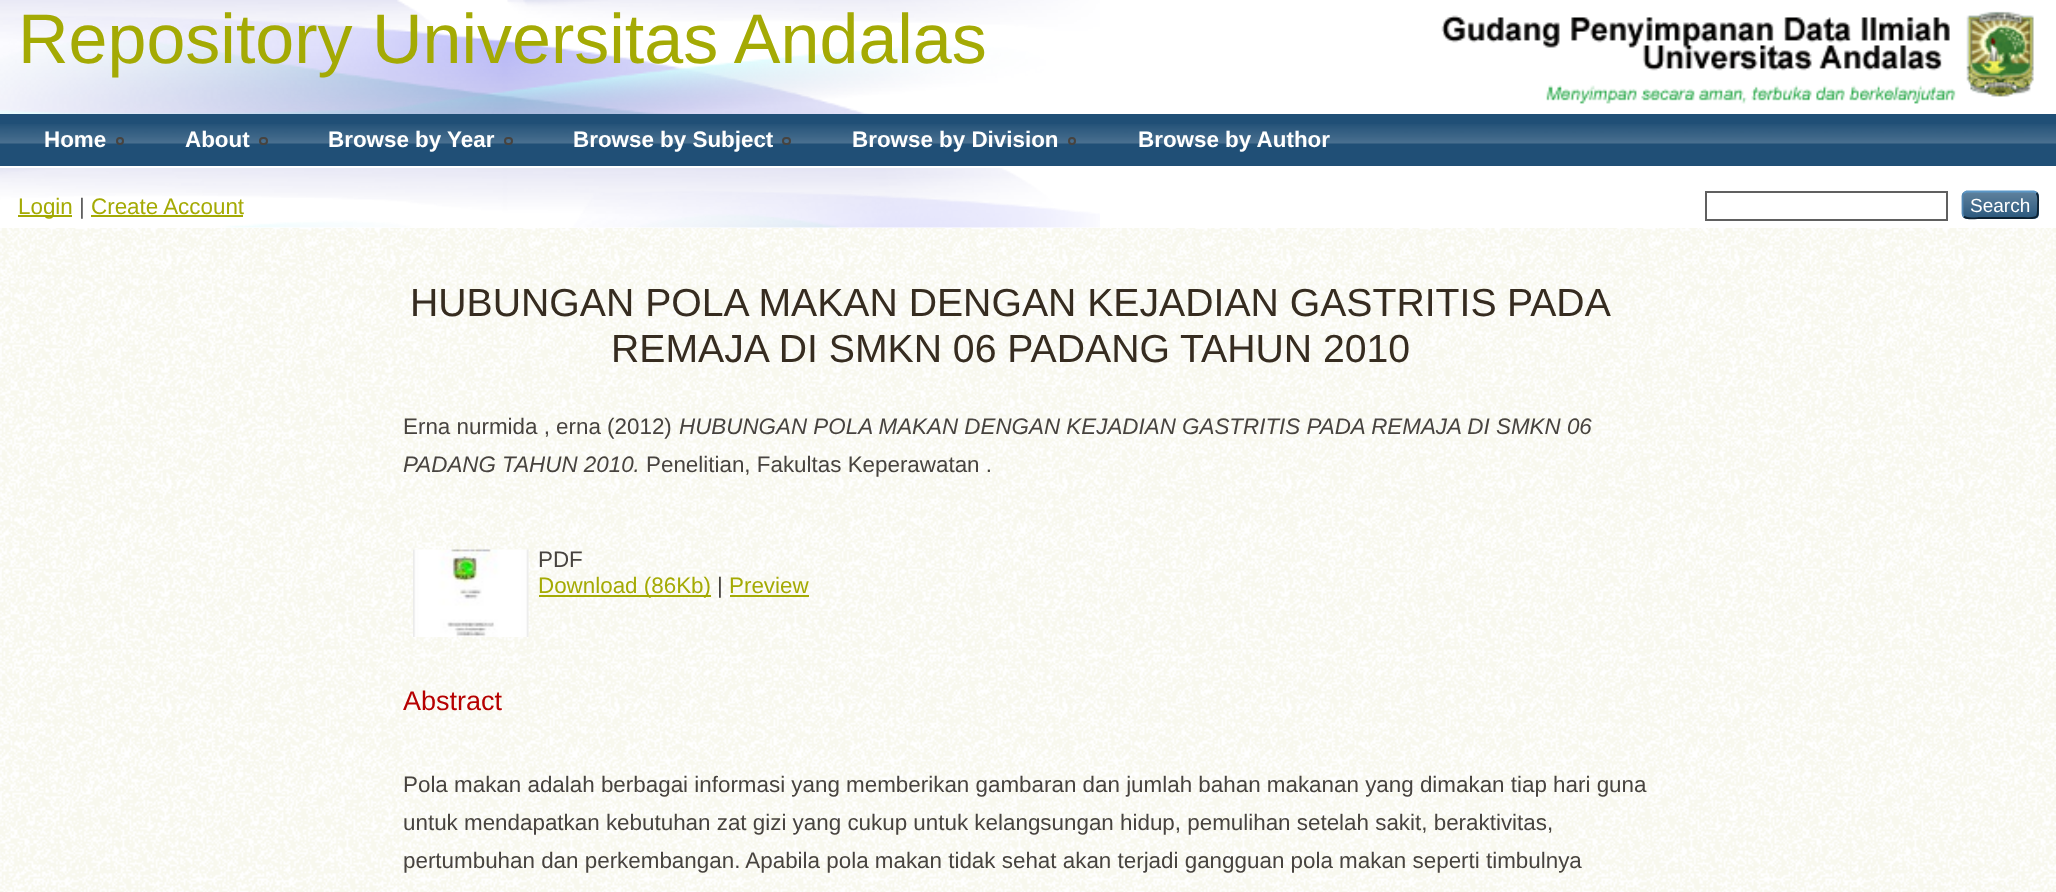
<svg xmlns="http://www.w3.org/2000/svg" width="2056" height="892">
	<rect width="100%" height="100%" fill="#FFFFFF" />
	<image x="0" y="228" width="2056" height="664" href="assets/img1.png" />
	<image x="0" y="0" width="1100" height="228" href="assets/img2.png" />
	<text x="18" y="63" font-family="Liberation Sans" font-size="70" fill="#A4AA04">Repository Universitas Andalas</text>
	<image x="1441" y="11" width="593" height="93" href="assets/img3.png" />
	<rect x="0" y="114" width="2056" height="52" fill="#204F76" />
	<image x="0" y="124" width="2056" height="20" href="assets/img4.png" />
	<rect x="0" y="166" width="1002" height="2" fill="#FFFFFF" />
	<text x="44" y="147" font-family="Liberation Sans" font-size="22.4" font-weight="700" fill="#FFFFFF">Home</text>
	<circle cx="120" cy="141" r="3" fill="none" stroke="#47433F" stroke-width="2" />
	<text x="185" y="147" font-family="Liberation Sans" font-size="22.4" font-weight="700" fill="#FFFFFF">About</text>
	<rect x="260" y="138" width="7" height="6" rx="3" fill="none" stroke="#47433F" stroke-width="2" />
	<text x="328" y="147" font-family="Liberation Sans" font-size="22.4" font-weight="700" fill="#FFFFFF">Browse by Year</text>
	<rect x="505" y="138" width="7" height="6" rx="3" fill="none" stroke="#47433F" stroke-width="2" />
	<text x="573" y="147" font-family="Liberation Sans" font-size="22.4" font-weight="700" fill="#FFFFFF">Browse by Subject</text>
	<rect x="783" y="138" width="7" height="6" rx="3" fill="none" stroke="#47433F" stroke-width="2" />
	<text x="852" y="147" font-family="Liberation Sans" font-size="22.4" font-weight="700" fill="#FFFFFF">Browse by Division</text>
	<circle cx="1072" cy="141" r="3" fill="none" stroke="#47433F" stroke-width="2" />
	<text x="1138" y="147" font-family="Liberation Sans" font-size="22.4" font-weight="700" fill="#FFFFFF">Browse by Author</text>
	<rect x="18" y="215" width="54" height="2" fill="#A4AA04" />
	<text x="18" y="214" font-family="Liberation Sans" font-size="22.4" fill="#A4AA04">Login</text>
	<text x="79" y="214" font-family="Liberation Sans" font-size="22.4" fill="#606060">|</text>
	<text x="91" y="214" font-family="Liberation Sans" font-size="22.4" fill="#A4AA04">Create Account</text>
	<rect x="91" y="215" width="152" height="2" fill="#A4AA04" />
	<rect x="1706" y="192" width="241" height="28" fill="none" stroke="#606060" stroke-width="2" />
	<rect x="1962" y="191" width="77" height="28" rx="5" fill="#1F4F76" />
	<image x="1962" y="191" width="77" height="28" href="assets/img5.png" />
	<path d="M1964 193L1966.5 191.5H2034L2036.5 193" fill="none" stroke="#5B97C7" stroke-width="1.8" />
	<path d="M2036.5 193C2039 195.5 2038 201.5 2038 205C2038 220 2038.5 218 2022.5 218H1978C1977.5 218 1967 219.5 1964 216.5" fill="none" stroke="#0D2131" stroke-width="1.8" />
	<path d="M1964 216.5C1963 216 1962.5 214.5 1962.5 213.5V196C1962.5 195 1963 193.5 1964 193" fill="none" stroke="#5287B3" stroke-width="1.8" />
	<text x="1970" y="212" font-family="Liberation Sans" font-size="19" fill="#FFFFFF">Search</text>
	<g font-family="Liberation Sans" font-size="39.2" fill="#362C20">
		<text x="410" y="316">HUBUNGAN POLA MAKAN DENGAN KEJADIAN GASTRITIS</text>
		<text x="1507" y="316">PADA</text>
		<text x="611" y="362">REMAJA DI SMKN 06 PADANG</text>
		<text x="1180" y="362">TAHUN 2010</text>
	</g>
	<text x="403" y="434" font-family="Liberation Sans" font-size="22.4" fill="#47433F">Erna nurmida , erna (2012)</text>
	<g font-family="Liberation Sans" font-size="22.4" font-style="italic" fill="#47433F">
		<text x="679" y="434">HUBUNGAN POLA MAKAN DENGAN KEJADIAN GASTRITIS PADA REMAJA DI SMKN 06</text>
		<text x="403" y="472">PADANG TAHUN 2010.</text>
	</g>
	<text x="646" y="472" font-family="Liberation Sans" font-size="22.4" fill="#47433F">Penelitian, Fakultas Keperawatan .</text>
	<image x="413" y="549" width="116" height="88" href="assets/img6.png" />
	<text x="538" y="567" font-family="Liberation Sans" font-size="22.4" fill="#47433F">PDF</text>
	<rect x="539" y="595" width="172" height="2" fill="#A4AA04" />
	<text x="538" y="593" font-family="Liberation Sans" font-size="22.4" fill="#A4AA04">Download (86Kb)</text>
	<text x="717" y="593" font-family="Liberation Sans" font-size="22.4" fill="#47433F">|</text>
	<text x="729" y="593" font-family="Liberation Sans" font-size="22.4" fill="#A4AA04">Preview</text>
	<rect x="730" y="595" width="79" height="2" fill="#A4AA04" />
	<text x="403" y="710" font-family="Liberation Sans" font-size="27" fill="#B60000">Abstract</text>
	<g font-family="Liberation Sans" font-size="22.4" fill="#47433F">
		<text x="403" y="792">Pola makan adalah berbagai informasi yang memberikan gambaran dan jumlah bahan makanan yang dimakan tiap hari guna</text>
		<text x="403" y="830">untuk mendapatkan kebutuhan zat gizi yang cukup untuk kelangsungan hidup, pemulihan setelah sakit, beraktivitas,</text>
		<text x="403" y="868">pertumbuhan dan perkembangan. Apabila pola makan tidak sehat akan terjadi gangguan pola makan seperti timbulnya</text>
	</g>
</svg>
